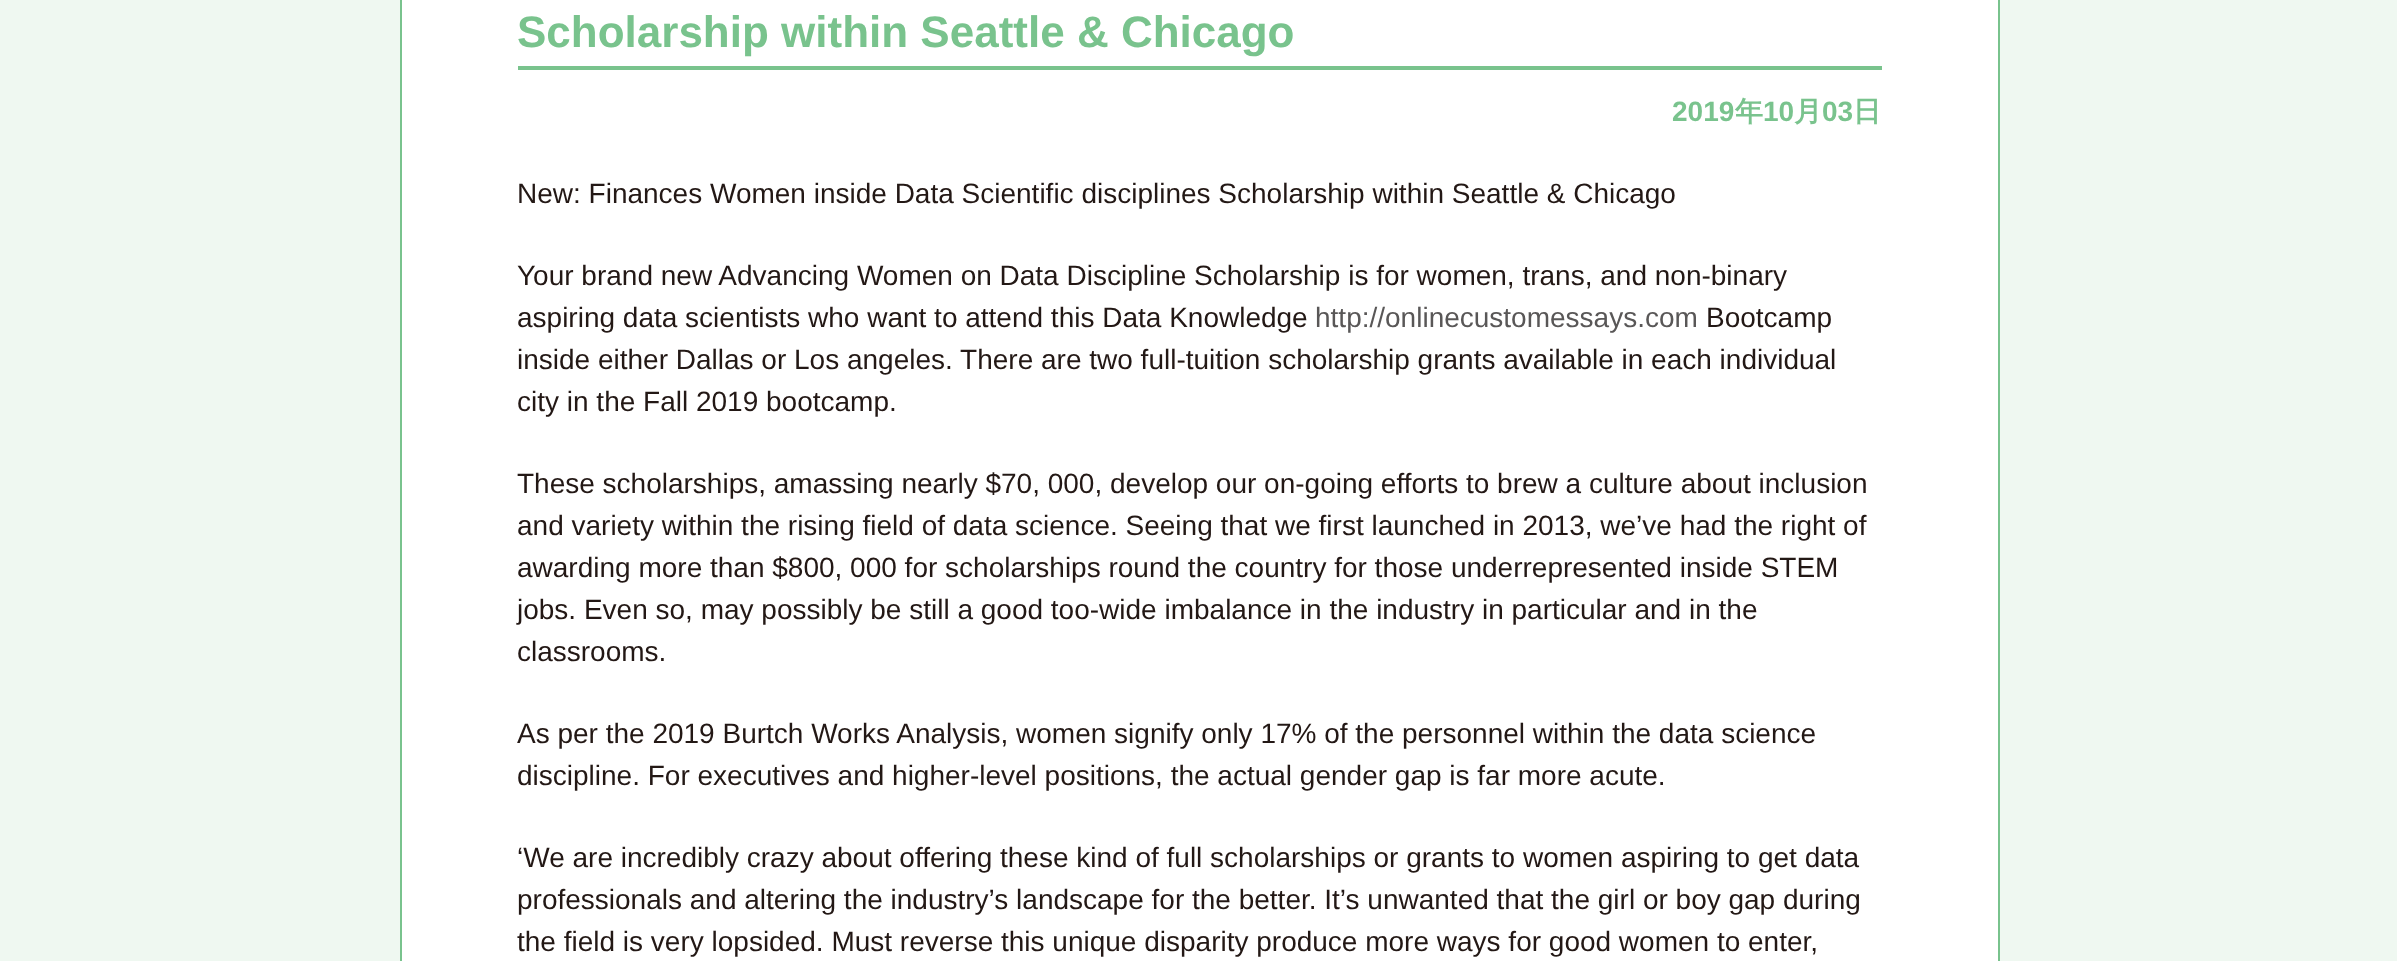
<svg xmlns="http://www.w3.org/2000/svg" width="2397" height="961">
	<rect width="100%" height="100%" fill="#EFF8F1" />
	<rect x="401" y="-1" width="1598" height="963" fill="#FFFFFF" stroke="#79C38D" stroke-width="2" />
	<rect x="518" y="66" width="1364" height="4" fill="#79C38D" />
	<text x="517" y="47" font-family="Liberation Sans" font-size="44" font-weight="700" fill="#79C38D">Scholarship within Seattle &amp; Chicago</text>
	<text x="1672" y="121" font-family="Liberation Sans" font-size="28" font-weight="700" fill="#79C38D">2019</text>
	<text x="1735" y="121" font-family="WenQuanYi Zen Hei" font-size="28" font-weight="700" fill="#79C38D">年</text>
	<text x="1763" y="121" font-family="Liberation Sans" font-size="28" font-weight="700" fill="#79C38D">10</text>
	<text x="1794" y="121" font-family="WenQuanYi Zen Hei" font-size="28" font-weight="700" fill="#79C38D">月</text>
	<text x="1822" y="121" font-family="Liberation Sans" font-size="28" font-weight="700" fill="#79C38D">03</text>
	<text x="1853" y="121" font-family="WenQuanYi Zen Hei" font-size="28" font-weight="700" fill="#79C38D">日</text>
	<g font-family="Liberation Sans" font-size="28" fill="#231815">
		<text x="517" y="203">New: Finances Women inside Data Scientific disciplines Scholarship within Seattle &amp; Chicago</text>
		<text x="517" y="285">Your brand new Advancing Women on Data Discipline Scholarship is for women, trans, and non-binary</text>
		<text x="517" y="327">aspiring data scientists who want to attend this Data Knowledge</text>
	</g>
	<text x="1315" y="327" font-family="Liberation Sans" font-size="28" fill="#595757">http://onlinecustomessays.com</text>
	<g font-family="Liberation Sans" font-size="28" fill="#231815">
		<text x="1706" y="327">Bootcamp</text>
		<text x="517" y="369">inside either Dallas or Los angeles. There are two full-tuition scholarship grants available in each individual</text>
		<text x="517" y="411">city in the Fall 2019 bootcamp.</text>
		<text x="517" y="493">These scholarships, amassing nearly $70, 000, develop our on-going efforts to brew a culture about inclusion</text>
		<text x="517" y="535">and variety within the rising field of data science. Seeing that we first launched in 2013, we’ve had the right of</text>
		<text x="517" y="577">awarding more than $800, 000 for scholarships round the country for those underrepresented inside STEM</text>
		<text x="517" y="619">jobs. Even so, may possibly be still a good too-wide imbalance in the industry in particular and in the</text>
		<text x="517" y="661">classrooms.</text>
		<text x="517" y="743">As per the 2019 Burtch Works Analysis, women signify only 17% of the personnel within the data science</text>
		<text x="517" y="785">discipline. For executives and higher-level positions, the actual gender gap is far more acute.</text>
		<text x="517" y="867">‘We are incredibly crazy about offering these kind of full scholarships or grants to women aspiring to get data</text>
		<text x="517" y="909">professionals and altering the industry’s landscape for the better. It’s unwanted that the girl or boy gap during</text>
		<text x="517" y="951">the field is very lopsided. Must reverse this unique disparity produce more ways for good women to enter,</text>
	</g>
</svg>
